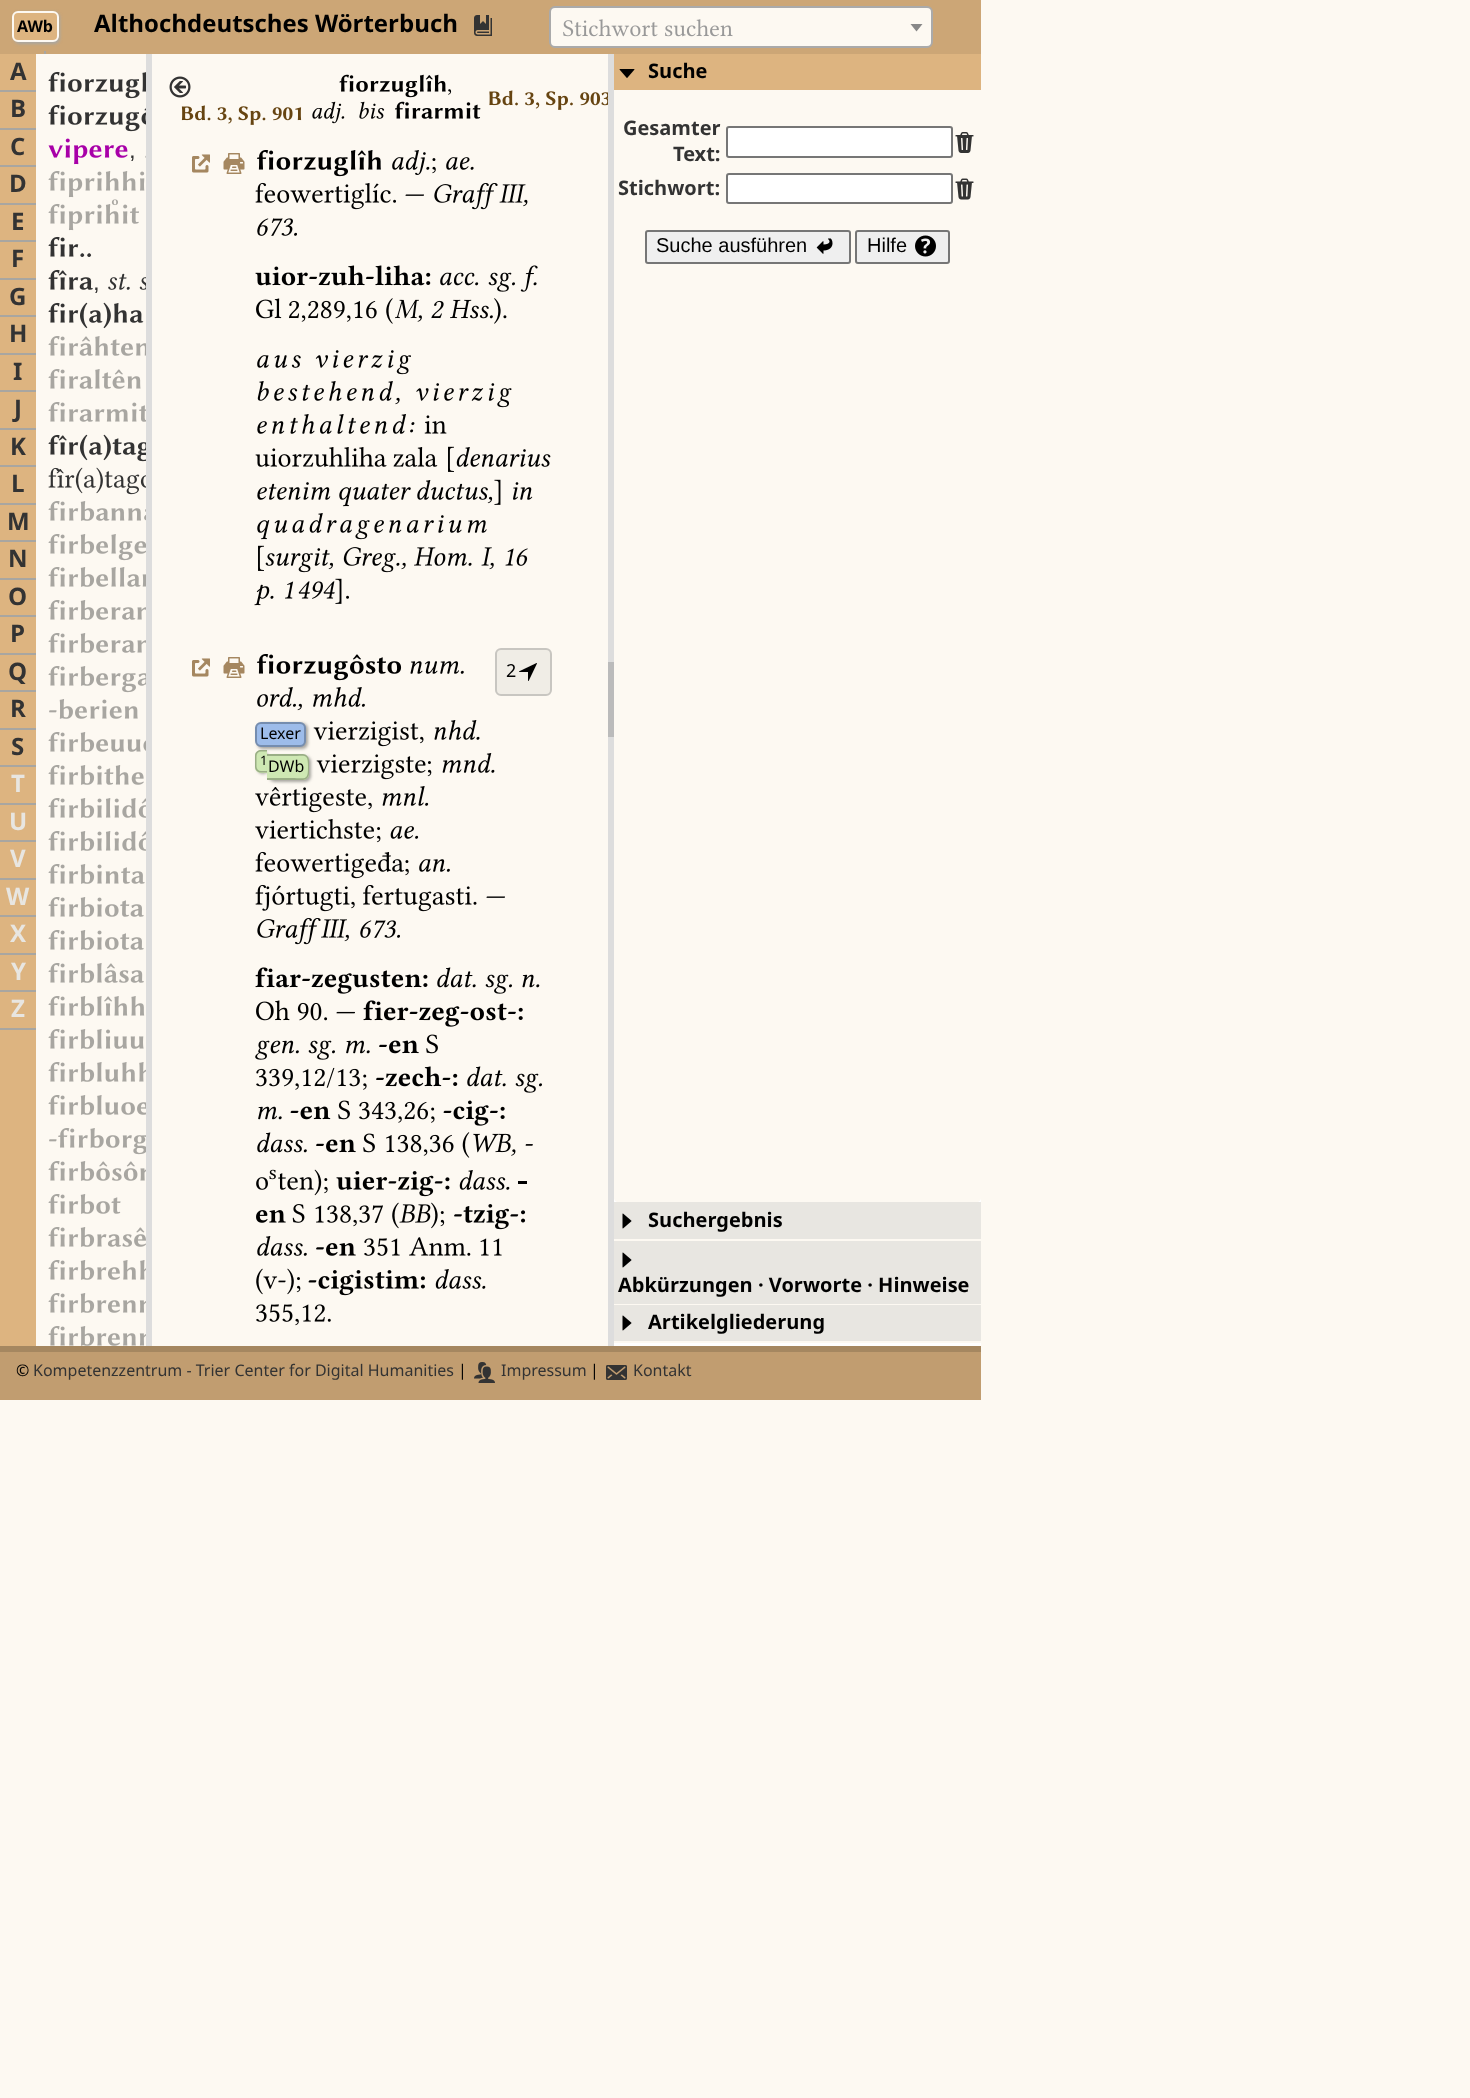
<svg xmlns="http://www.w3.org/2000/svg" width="1470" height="2098">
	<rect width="100%" height="100%" fill="#FDF9F2" />
	<rect x="0" y="0" width="981" height="54" fill="#CCA676" />
	<rect x="14" y="12" width="46" height="32" rx="6" fill="#A8A6A1" filter="blur(1.5px)" />
	<rect x="13" y="12" width="45" height="29" rx="5" fill="#DDB480" stroke="#FDF9F2" stroke-width="2" />
	<text x="17" y="32" font-family="Noto Sans" font-size="16" font-weight="700" fill="#000000">AWb</text>
	<text x="94" y="32" font-family="Noto Sans" font-size="24" font-weight="700" fill="#000000">Althochdeutsches Wörterbuch</text>
	<image x="474" y="15" width="18" height="21" href="assets/img1.png" />
	<rect x="550" y="7" width="382" height="40" rx="5" fill="#FDF9F2" stroke="#AAAAAA" stroke-width="2" />
	<image x="563" y="19" width="170" height="18" href="assets/img2.png" />
	<path d="M910.5 24H922.5L916.5 31.5Z" fill="#888888" />
	<rect x="44" y="51" width="2" height="3" fill="#A8A6A1" />
	<rect x="146" y="54" width="6" height="1292" fill="#DDDDDD" />
	<rect x="608" y="54" width="6" height="1292" fill="#DDDDDD" />
	<rect x="608" y="662" width="6" height="75" fill="#BBBBBB" />
	<rect x="0" y="54" width="36" height="1292" fill="#DDB480" />
	<rect x="0" y="90" width="36" height="2" fill="#A8A6A1" />
	<text x="10" y="80" font-family="Noto Sans" font-size="24" font-weight="700" fill="#333333">A</text>
	<rect x="0" y="128" width="36" height="2" fill="#A8A6A1" />
	<text x="10" y="117" font-family="Noto Sans" font-size="24" font-weight="700" fill="#333333">B</text>
	<rect x="0" y="165" width="36" height="2" fill="#A8A6A1" />
	<text x="10" y="155" font-family="Noto Sans" font-size="24" font-weight="700" fill="#333333">C</text>
	<rect x="0" y="203" width="36" height="2" fill="#A8A6A1" />
	<text x="9" y="192" font-family="Noto Sans" font-size="24" font-weight="700" fill="#333333">D</text>
	<rect x="0" y="240" width="36" height="2" fill="#A8A6A1" />
	<text x="11" y="230" font-family="Noto Sans" font-size="24" font-weight="700" fill="#333333">E</text>
	<rect x="0" y="278" width="36" height="2" fill="#A8A6A1" />
	<text x="11" y="267" font-family="Noto Sans" font-size="24" font-weight="700" fill="#333333">F</text>
	<rect x="0" y="315" width="36" height="2" fill="#A8A6A1" />
	<text x="9" y="305" font-family="Noto Sans" font-size="24" font-weight="700" fill="#333333">G</text>
	<rect x="0" y="353" width="36" height="2" fill="#A8A6A1" />
	<text x="9" y="342" font-family="Noto Sans" font-size="24" font-weight="700" fill="#333333">H</text>
	<rect x="0" y="390" width="36" height="2" fill="#A8A6A1" />
	<text x="13" y="380" font-family="Noto Sans" font-size="24" font-weight="700" fill="#333333">I</text>
	<rect x="0" y="428" width="36" height="2" fill="#A8A6A1" />
	<text x="14" y="417" font-family="Noto Sans" font-size="24" font-weight="700" fill="#333333">J</text>
	<rect x="0" y="465" width="36" height="2" fill="#A8A6A1" />
	<text x="10" y="455" font-family="Noto Sans" font-size="24" font-weight="700" fill="#333333">K</text>
	<rect x="0" y="503" width="36" height="2" fill="#A8A6A1" />
	<text x="11" y="492" font-family="Noto Sans" font-size="24" font-weight="700" fill="#333333">L</text>
	<rect x="0" y="540" width="36" height="2" fill="#A8A6A1" />
	<text x="7" y="530" font-family="Noto Sans" font-size="24" font-weight="700" fill="#333333">M</text>
	<rect x="0" y="578" width="36" height="2" fill="#A8A6A1" />
	<text x="8" y="567" font-family="Noto Sans" font-size="24" font-weight="700" fill="#333333">N</text>
	<rect x="0" y="615" width="36" height="2" fill="#A8A6A1" />
	<text x="8" y="605" font-family="Noto Sans" font-size="24" font-weight="700" fill="#333333">O</text>
	<rect x="0" y="653" width="36" height="2" fill="#A8A6A1" />
	<text x="10" y="642" font-family="Noto Sans" font-size="24" font-weight="700" fill="#333333">P</text>
	<rect x="0" y="690" width="36" height="2" fill="#A8A6A1" />
	<text x="8" y="680" font-family="Noto Sans" font-size="24" font-weight="700" fill="#333333">Q</text>
	<rect x="0" y="728" width="36" height="2" fill="#A8A6A1" />
	<text x="10" y="717" font-family="Noto Sans" font-size="24" font-weight="700" fill="#333333">R</text>
	<rect x="0" y="765" width="36" height="2" fill="#A8A6A1" />
	<text x="11" y="755" font-family="Noto Sans" font-size="24" font-weight="700" fill="#333333">S</text>
	<rect x="0" y="803" width="36" height="2" fill="#A8A6A1" />
	<text x="11" y="792" font-family="Noto Sans" font-size="24" font-weight="700" fill="#E8E6E1">T</text>
	<rect x="0" y="840" width="36" height="2" fill="#A8A6A1" />
	<text x="9" y="830" font-family="Noto Sans" font-size="24" font-weight="700" fill="#E8E6E1">U</text>
	<rect x="0" y="878" width="36" height="2" fill="#A8A6A1" />
	<text x="10" y="867" font-family="Noto Sans" font-size="24" font-weight="700" fill="#E8E6E1">V</text>
	<rect x="0" y="915" width="36" height="2" fill="#A8A6A1" />
	<text x="6" y="905" font-family="Noto Sans" font-size="24" font-weight="700" fill="#E8E6E1">W</text>
	<rect x="0" y="953" width="36" height="2" fill="#A8A6A1" />
	<text x="10" y="942" font-family="Noto Sans" font-size="24" font-weight="700" fill="#E8E6E1">X</text>
	<rect x="0" y="990" width="36" height="2" fill="#A8A6A1" />
	<text x="11" y="980" font-family="Noto Sans" font-size="24" font-weight="700" fill="#E8E6E1">Y</text>
	<rect x="0" y="1028" width="36" height="2" fill="#A8A6A1" />
	<text x="11" y="1017" font-family="Noto Sans" font-size="24" font-weight="700" fill="#E8E6E1">Z</text>
	<image x="48" y="71" width="98" height="28" href="assets/img3.png" />
	<image x="48" y="104" width="98" height="28" href="assets/img4.png" />
	<image x="48" y="138" width="80" height="27" href="assets/img5.png" />
	<text x="129" y="158" font-family="Liberation Sans" font-size="24" fill="#333333">,</text>
	<image x="145" y="155" width="1" height="3" href="assets/img6.png" />
	<image x="48" y="171" width="97" height="27" href="assets/img7.png" />
	<image x="48" y="199" width="91" height="32" href="assets/img8.png" />
	<image x="48" y="236" width="44" height="21" href="assets/img9.png" />
	<image x="48" y="269" width="45" height="21" href="assets/img10.png" />
	<text x="93" y="290" font-family="Liberation Sans" font-size="24" fill="#333333">,</text>
	<image x="108" y="273" width="38" height="17" href="assets/img11.png" />
	<image x="48" y="302" width="96" height="27" href="assets/img12.png" />
	<image x="48" y="336" width="98" height="20" href="assets/img13.png" />
	<image x="48" y="369" width="93" height="20" href="assets/img14.png" />
	<image x="48" y="402" width="98" height="20" href="assets/img15.png" />
	<image x="48" y="434" width="98" height="28" href="assets/img16.png" />
	<image x="48" y="467" width="98" height="28" href="assets/img17.png" />
	<image x="48" y="501" width="98" height="20" href="assets/img18.png" />
	<image x="48" y="534" width="98" height="27" href="assets/img19.png" />
	<image x="48" y="567" width="98" height="20" href="assets/img20.png" />
	<image x="48" y="600" width="98" height="20" href="assets/img21.png" />
	<image x="48" y="633" width="98" height="20" href="assets/img21.png" />
	<image x="48" y="666" width="98" height="27" href="assets/img22.png" />
	<image x="49" y="699" width="89" height="20" href="assets/img23.png" />
	<image x="48" y="732" width="98" height="20" href="assets/img24.png" />
	<image x="48" y="765" width="96" height="20" href="assets/img25.png" />
	<image x="48" y="798" width="98" height="20" href="assets/img26.png" />
	<image x="48" y="831" width="98" height="20" href="assets/img26.png" />
	<image x="48" y="864" width="97" height="20" href="assets/img27.png" />
	<image x="48" y="897" width="96" height="20" href="assets/img28.png" />
	<image x="48" y="930" width="96" height="20" href="assets/img28.png" />
	<image x="48" y="963" width="96" height="20" href="assets/img29.png" />
	<image x="48" y="996" width="97" height="20" href="assets/img30.png" />
	<image x="48" y="1029" width="96" height="20" href="assets/img31.png" />
	<image x="48" y="1062" width="98" height="20" href="assets/img32.png" />
	<image x="48" y="1095" width="98" height="20" href="assets/img33.png" />
	<image x="49" y="1128" width="97" height="27" href="assets/img34.png" />
	<image x="48" y="1161" width="98" height="20" href="assets/img35.png" />
	<image x="48" y="1194" width="73" height="20" href="assets/img36.png" />
	<image x="48" y="1227" width="98" height="20" href="assets/img37.png" />
	<image x="48" y="1260" width="98" height="20" href="assets/img38.png" />
	<image x="48" y="1293" width="98" height="20" href="assets/img39.png" />
	<image x="48" y="1326" width="98" height="20" href="assets/img39.png" />
	<image x="169" y="76" width="22" height="22" href="assets/img40.png" />
	<image x="181" y="105" width="121" height="20" href="assets/img41.png" />
	<image x="339" y="74" width="107" height="24" href="assets/img42.png" />
	<image x="448" y="89" width="4" height="6" href="assets/img43.png" />
	<image x="312" y="101" width="33" height="23" href="assets/img44.png" />
	<image x="359" y="101" width="26" height="18" href="assets/img45.png" />
	<image x="395" y="101" width="86" height="18" href="assets/img46.png" />
	<image x="489" y="90" width="119" height="20" href="assets/img47.png" />
	<image x="192" y="154" width="18" height="19" href="assets/img48.png" />
	<image x="223" y="153" width="22" height="21" href="assets/img49.png" />
	<image x="257" y="150" width="124" height="27" href="assets/img50.png" />
	<image x="392" y="150" width="38" height="25" href="assets/img51.png" />
	<image x="432" y="158" width="4" height="16" href="assets/img52.png" />
	<image x="446" y="157" width="28" height="13" href="assets/img53.png" />
	<image x="255" y="182" width="141" height="28" href="assets/img54.png" />
	<image x="405" y="194" width="19" height="2" href="assets/img55.png" />
	<image x="434" y="183" width="64" height="27" href="assets/img56.png" />
	<image x="499" y="184" width="29" height="23" href="assets/img57.png" />
	<image x="257" y="218" width="40" height="18" href="assets/img58.png" />
	<image x="255" y="265" width="176" height="21" href="assets/img59.png" />
	<image x="440" y="272" width="39" height="14" href="assets/img60.png" />
	<image x="488" y="272" width="27" height="20" href="assets/img61.png" />
	<image x="520" y="265" width="18" height="27" href="assets/img62.png" />
	<image x="256" y="298" width="26" height="21" href="assets/img63.png" />
	<image x="289" y="300" width="88" height="22" href="assets/img64.png" />
	<image x="386" y="298" width="7" height="26" href="assets/img65.png" />
	<image x="395" y="299" width="27" height="23" href="assets/img66.png" />
	<image x="431" y="300" width="13" height="19" href="assets/img67.png" />
	<image x="450" y="299" width="43" height="20" href="assets/img68.png" />
	<image x="494" y="298" width="13" height="26" href="assets/img69.png" />
	<image x="257" y="355" width="44" height="13" href="assets/img70.png" />
	<image x="315" y="350" width="96" height="25" href="assets/img71.png" />
	<image x="257" y="381" width="143" height="24" href="assets/img72.png" />
	<image x="416" y="383" width="96" height="25" href="assets/img73.png" />
	<image x="257" y="414" width="158" height="20" href="assets/img74.png" />
	<image x="424" y="415" width="23" height="19" href="assets/img75.png" />
	<image x="255" y="447" width="132" height="20" href="assets/img76.png" />
	<image x="393" y="447" width="45" height="20" href="assets/img77.png" />
	<image x="448" y="446" width="6" height="26" href="assets/img78.png" />
	<image x="456" y="447" width="95" height="20" href="assets/img79.png" />
	<image x="257" y="482" width="74" height="18" href="assets/img80.png" />
	<image x="339" y="483" width="72" height="24" href="assets/img81.png" />
	<image x="417" y="480" width="76" height="24" href="assets/img82.png" />
	<image x="494" y="479" width="7" height="26" href="assets/img83.png" />
	<image x="513" y="482" width="20" height="18" href="assets/img84.png" />
	<image x="257" y="513" width="230" height="27" href="assets/img85.png" />
	<image x="258" y="545" width="6" height="26" href="assets/img78.png" />
	<image x="265" y="548" width="68" height="25" href="assets/img86.png" />
	<image x="343" y="547" width="63" height="26" href="assets/img87.png" />
	<image x="414" y="547" width="58" height="19" href="assets/img88.png" />
	<image x="481" y="547" width="13" height="23" href="assets/img89.png" />
	<image x="505" y="548" width="23" height="18" href="assets/img90.png" />
	<image x="254" y="584" width="20" height="22" href="assets/img91.png" />
	<image x="285" y="581" width="50" height="18" href="assets/img92.png" />
	<image x="335" y="578" width="14" height="26" href="assets/img93.png" />
	<image x="192" y="658" width="18" height="19" href="assets/img48.png" />
	<image x="223" y="657" width="22" height="21" href="assets/img49.png" />
	<image x="257" y="654" width="145" height="27" href="assets/img94.png" />
	<image x="410" y="661" width="54" height="13" href="assets/img95.png" />
	<rect x="496" y="649" width="55" height="46" rx="5" fill="#F0EDE6" stroke="#C8C6C1" stroke-width="2" />
	<text x="506" y="677" font-family="Noto Sans" font-size="18" fill="#000000">2</text>
	<image x="519" y="663" width="18" height="18" href="assets/img96.png" />
	<image x="257" y="687" width="39" height="20" href="assets/img97.png" />
	<image x="297" y="703" width="5" height="8" href="assets/img98.png" />
	<image x="313" y="687" width="52" height="20" href="assets/img99.png" />
	<rect x="257" y="723" width="51" height="26" rx="6" fill="#A8A6A1" filter="blur(1.5px)" />
	<rect x="256" y="723" width="49" height="23" rx="5" fill="#9DBCEA" stroke="#758DAF" stroke-width="2" />
	<text x="260" y="739" font-family="Noto Sans" font-size="16" fill="#000000">Lexer</text>
	<image x="313" y="721" width="111" height="26" href="assets/img100.png" />
	<image x="434" y="720" width="46" height="20" href="assets/img101.png" />
	<rect x="257" y="752" width="12" height="22" rx="6" fill="#A8A6A1" filter="blur(1.5px)" />
	<path d="M261 750H267V773H261C257.5 773 255 770.5 255 767V756C255 752.5 257.5 750 261 750Z" fill="#CEE8B3" />
	<path d="M261 750H267V772.5H261C257.5 772.5 255 770 255 766.5V756C255 752.5 257.5 750 261 750ZM261 751.5H267V771H261C258.5 771 256.5 769 256.5 766.5V756C256.5 753.5 258.5 751.5 261 751.5Z" fill="#9AAE86" fill-rule="evenodd" />
	<rect x="269" y="756" width="42" height="26" rx="6" fill="#A8A6A1" filter="blur(1.5px)" />
	<text x="260" y="765" font-family="Noto Sans" font-size="13" fill="#000000">1</text>
	<path d="M267 755H303C306.5 755 309 757.5 309 761V774C309 777.5 306.5 780 303 780H267Z" fill="#CEE8B3" />
	<path d="M267 754H303C306 754 309 757 309 760V774C309 777 306 780 303 780H267ZM267 756H291C306 756 308 753 308 767C308 781 306 778 291 778H267Z" fill="#9AAE86" fill-rule="evenodd" />
	<text x="268" y="772" font-family="Noto Sans" font-size="16" fill="#000000">DWb</text>
	<image x="316" y="754" width="110" height="26" href="assets/img102.png" />
	<image x="427" y="761" width="5" height="16" href="assets/img103.png" />
	<image x="442" y="753" width="53" height="20" href="assets/img104.png" />
	<image x="255" y="787" width="117" height="26" href="assets/img105.png" />
	<image x="382" y="786" width="47" height="20" href="assets/img106.png" />
	<image x="255" y="819" width="126" height="24" href="assets/img107.png" />
	<image x="390" y="826" width="29" height="13" href="assets/img108.png" />
	<image x="255" y="851" width="149" height="28" href="assets/img109.png" />
	<image x="405" y="860" width="4" height="16" href="assets/img52.png" />
	<image x="419" y="859" width="31" height="13" href="assets/img110.png" />
	<image x="255" y="884" width="100" height="28" href="assets/img111.png" />
	<image x="363" y="885" width="114" height="27" href="assets/img112.png" />
	<image x="486" y="896" width="19" height="2" href="assets/img55.png" />
	<image x="257" y="918" width="64" height="27" href="assets/img56.png" />
	<image x="321" y="919" width="28" height="23" href="assets/img113.png" />
	<image x="360" y="920" width="40" height="18" href="assets/img58.png" />
	<image x="255" y="967" width="173" height="27" href="assets/img114.png" />
	<image x="437" y="967" width="39" height="21" href="assets/img115.png" />
	<image x="485" y="974" width="27" height="20" href="assets/img61.png" />
	<image x="522" y="974" width="18" height="14" href="assets/img116.png" />
	<image x="256" y="1000" width="34" height="21" href="assets/img117.png" />
	<image x="297" y="1002" width="31" height="19" href="assets/img118.png" />
	<image x="336" y="1011" width="19" height="3" href="assets/img119.png" />
	<image x="363" y="1000" width="160" height="27" href="assets/img120.png" />
	<image x="255" y="1040" width="44" height="20" href="assets/img121.png" />
	<image x="308" y="1040" width="27" height="20" href="assets/img61.png" />
	<image x="346" y="1040" width="24" height="14" href="assets/img122.png" />
	<image x="379" y="1040" width="40" height="14" href="assets/img123.png" />
	<image x="426" y="1034" width="12" height="20" href="assets/img124.png" />
	<image x="256" y="1067" width="111" height="23" href="assets/img125.png" />
	<image x="376" y="1066" width="82" height="21" href="assets/img126.png" />
	<image x="467" y="1066" width="39" height="21" href="assets/img115.png" />
	<image x="515" y="1073" width="27" height="20" href="assets/img61.png" />
	<image x="258" y="1106" width="24" height="14" href="assets/img122.png" />
	<image x="290" y="1106" width="41" height="14" href="assets/img127.png" />
	<image x="338" y="1100" width="12" height="20" href="assets/img124.png" />
	<image x="359" y="1101" width="76" height="22" href="assets/img128.png" />
	<image x="443" y="1100" width="62" height="26" href="assets/img129.png" />
	<image x="257" y="1132" width="50" height="21" href="assets/img130.png" />
	<image x="316" y="1139" width="40" height="14" href="assets/img123.png" />
	<image x="363" y="1133" width="12" height="20" href="assets/img124.png" />
	<image x="386" y="1134" width="68" height="22" href="assets/img131.png" />
	<image x="462" y="1132" width="8" height="26" href="assets/img132.png" />
	<image x="473" y="1133" width="43" height="23" href="assets/img133.png" />
	<image x="525" y="1144" width="8" height="2" href="assets/img134.png" />
	<image x="256" y="1177" width="12" height="13" href="assets/img135.png" />
	<image x="269" y="1169" width="7" height="11" href="assets/img136.png" />
	<image x="278" y="1169" width="50" height="27" href="assets/img137.png" />
	<image x="336" y="1171" width="114" height="26" href="assets/img138.png" />
	<image x="459" y="1170" width="51" height="20" href="assets/img139.png" />
	<rect x="518" y="1181" width="9" height="3" fill="#000000" />
	<image x="256" y="1210" width="30" height="13" href="assets/img140.png" />
	<image x="292" y="1204" width="13" height="19" href="assets/img141.png" />
	<image x="315" y="1205" width="68" height="22" href="assets/img142.png" />
	<image x="392" y="1202" width="7" height="27" href="assets/img143.png" />
	<image x="399" y="1204" width="32" height="19" href="assets/img144.png" />
	<image x="431" y="1202" width="14" height="27" href="assets/img145.png" />
	<image x="454" y="1204" width="72" height="26" href="assets/img146.png" />
	<image x="257" y="1236" width="50" height="20" href="assets/img147.png" />
	<image x="316" y="1243" width="40" height="13" href="assets/img148.png" />
	<image x="364" y="1238" width="36" height="18" href="assets/img149.png" />
	<image x="409" y="1237" width="62" height="19" href="assets/img150.png" />
	<image x="480" y="1238" width="22" height="18" href="assets/img151.png" />
	<image x="256" y="1268" width="45" height="27" href="assets/img152.png" />
	<image x="308" y="1270" width="117" height="26" href="assets/img153.png" />
	<image x="435" y="1269" width="51" height="20" href="assets/img139.png" />
	<image x="256" y="1304" width="75" height="22" href="assets/img154.png" />
	<rect x="614" y="1197" width="367" height="149" fill="#FFFFFF" />
	<rect x="614" y="54" width="367" height="36" fill="#DDB480" />
	<image x="619" y="69" width="16" height="9" href="assets/img155.png" />
	<text x="648" y="78" font-family="Noto Sans" font-size="20" font-weight="700" fill="#000000">Suche</text>
	<path d="M614 90H981V1197C981 1200 979 1202 976 1202H619C616 1202 614 1200 614 1197Z" fill="#FDF9F2" />
	<g font-family="Noto Sans" font-size="20" font-weight="700" fill="#333333">
		<text x="623" y="135">Gesamter</text>
		<text x="673" y="161">Text:</text>
	</g>
	<rect x="727" y="127" width="225" height="30" rx="2" fill="#FFFFFF" stroke="#767676" stroke-width="2" />
	<image x="955" y="132" width="19" height="21" href="assets/img156.png" />
	<text x="618" y="195" font-family="Noto Sans" font-size="20" font-weight="700" fill="#333333">Stichwort:</text>
	<rect x="727" y="174" width="225" height="29" rx="2" fill="#FFFFFF" stroke="#767676" stroke-width="2" />
	<image x="955" y="178" width="19" height="22" href="assets/img157.png" />
	<rect x="646" y="231" width="204" height="32" rx="2" fill="#EFEFEF" stroke="#767676" stroke-width="2" />
	<text x="656" y="252" font-family="Liberation Sans" font-size="20" fill="#000000">Suche ausführen</text>
	<image x="816" y="238" width="17" height="16" href="assets/img158.png" />
	<rect x="856" y="231" width="93" height="32" rx="2" fill="#EFEFEF" stroke="#767676" stroke-width="2" />
	<text x="867" y="252" font-family="Liberation Sans" font-size="20" fill="#000000">Hilfe</text>
	<image x="915" y="235" width="21" height="22" href="assets/img159.png" />
	<path d="M614 269H981V1197C981 1200 979 1202 976 1202H619C616 1202 614 1200 614 1197Z" fill="#FDF9F2" />
	<rect x="614" y="1202" width="367" height="37" fill="#E8E6E1" />
	<rect x="614" y="1239" width="367" height="2" fill="#FDF9F2" />
	<image x="622" y="1213" width="10" height="16" href="assets/img160.png" />
	<text x="648" y="1227" font-family="Noto Sans" font-size="20" font-weight="700" fill="#000000">Suchergebnis</text>
	<rect x="614" y="1241" width="367" height="63" fill="#E8E6E1" />
	<rect x="614" y="1304" width="367" height="1" fill="#FDF9F2" />
	<image x="622" y="1252" width="10" height="16" href="assets/img160.png" />
	<text x="618" y="1292" font-family="Noto Sans" font-size="20" font-weight="700" fill="#000000">Abkürzungen · Vorworte · Hinweise</text>
	<rect x="614" y="1305" width="367" height="36" fill="#E8E6E1" />
	<rect x="614" y="1341" width="367" height="2" fill="#FDF9F2" />
	<image x="622" y="1315" width="10" height="16" href="assets/img160.png" />
	<text x="648" y="1329" font-family="Noto Sans" font-size="20" font-weight="700" fill="#000000">Artikelgliederung</text>
	<rect x="0" y="1346" width="981" height="6" fill="#A58760" />
	<rect x="0" y="1352" width="981" height="48" fill="#C19D70" />
	<text x="16" y="1376" font-family="Noto Sans" font-size="16" fill="#000000">©</text>
	<text x="33" y="1376" font-family="Noto Sans" font-size="16" fill="#333333">Kompetenzzentrum - Trier Center for Digital Humanities</text>
	<text x="458" y="1376" font-family="Noto Sans" font-size="16" fill="#000000">|</text>
	<image x="474" y="1362" width="21" height="21" href="assets/img161.png" />
	<text x="501" y="1376" font-family="Noto Sans" font-size="16" fill="#333333">Impressum</text>
	<text x="590" y="1376" font-family="Noto Sans" font-size="16" fill="#000000">|</text>
	<image x="606" y="1365" width="21" height="15" href="assets/img162.png" />
	<text x="633" y="1376" font-family="Noto Sans" font-size="16" fill="#333333">Kontakt</text>
</svg>
